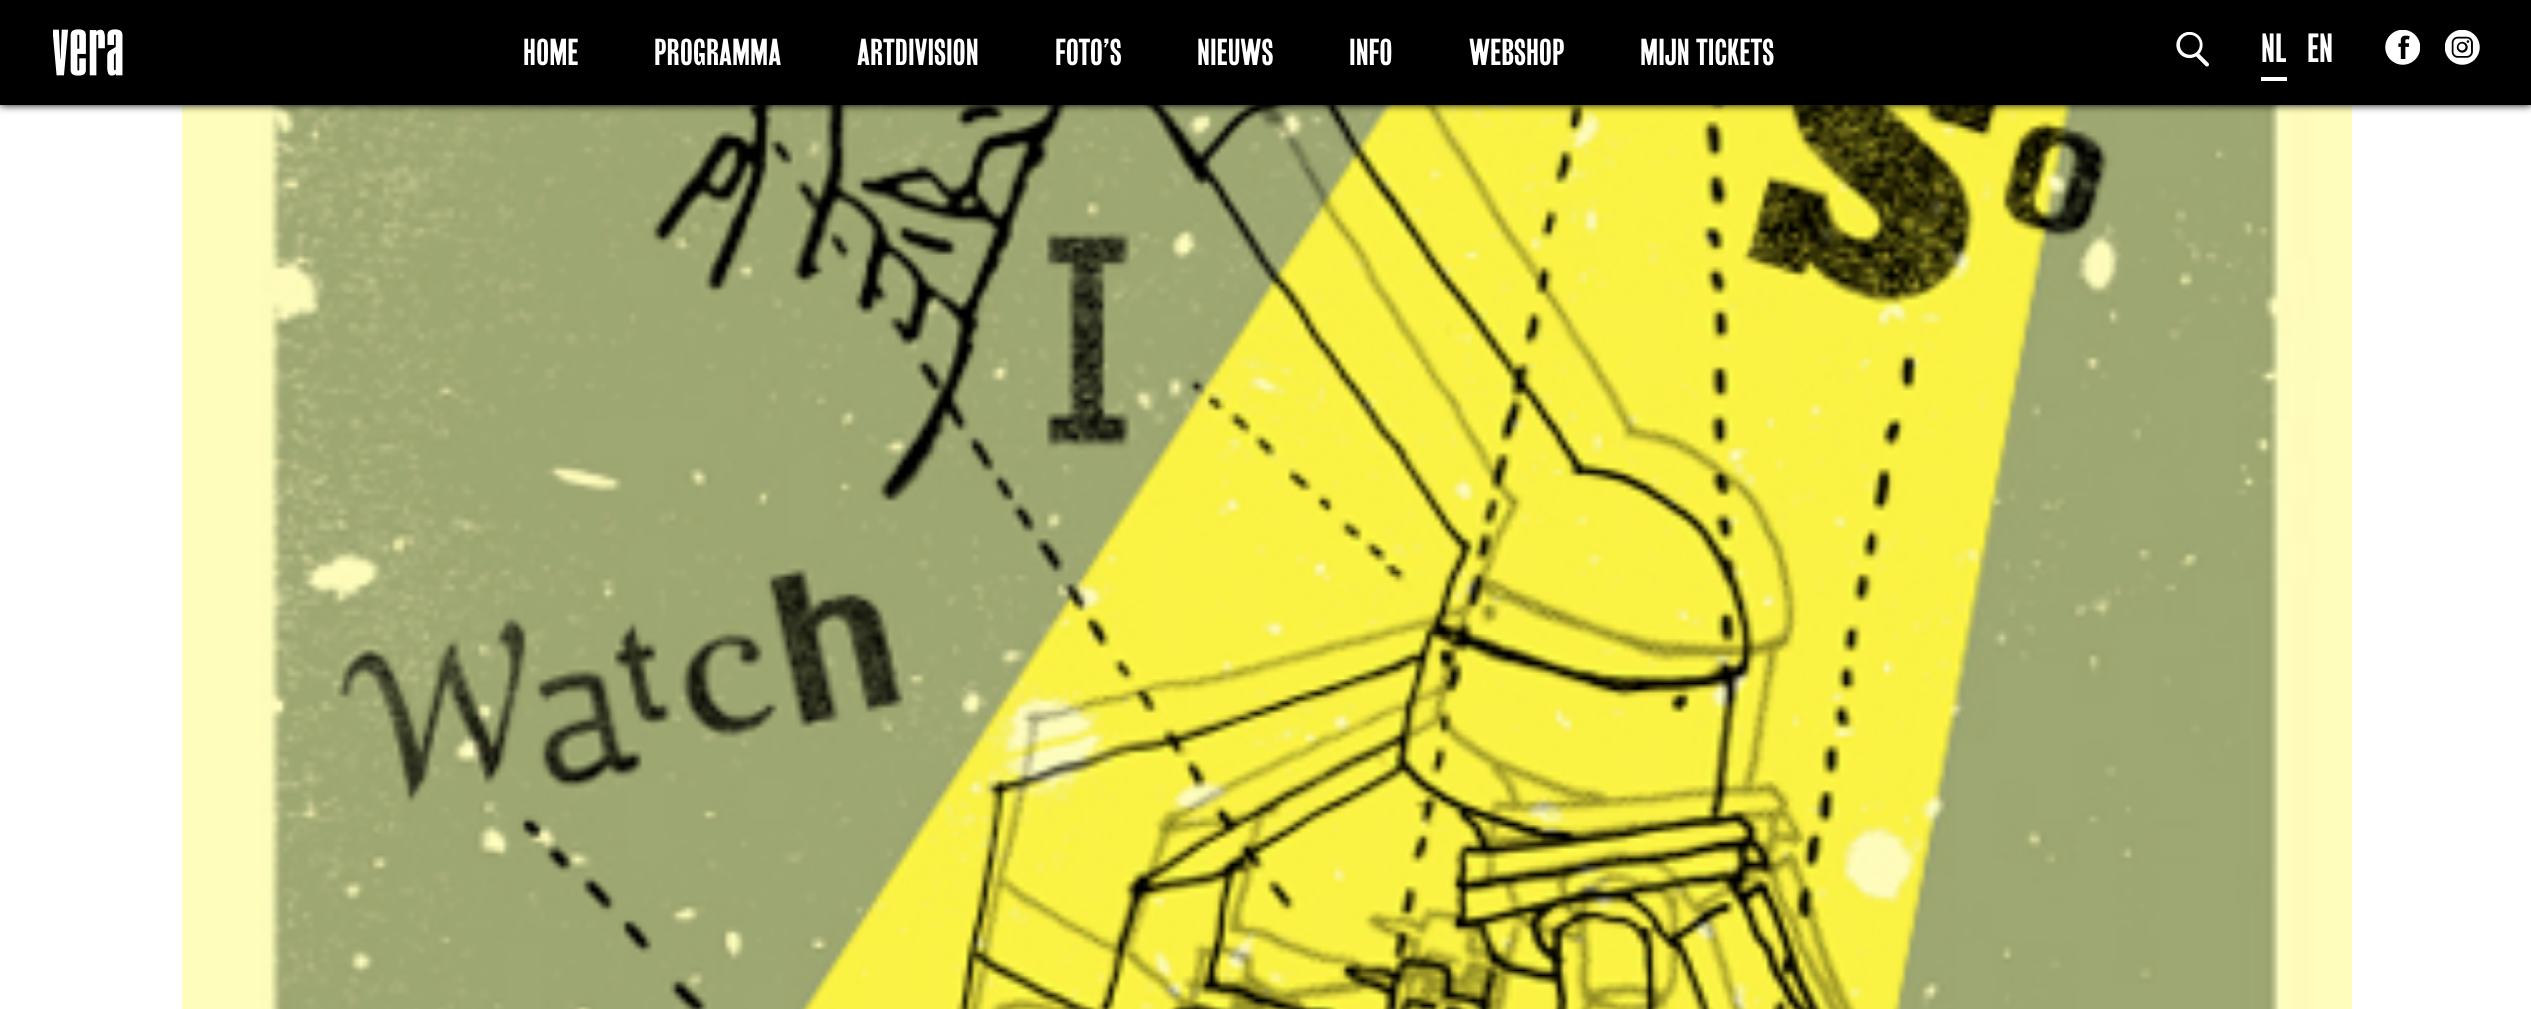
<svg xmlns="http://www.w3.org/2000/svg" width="2531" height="1009">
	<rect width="100%" height="100%" fill="#FFFFFF" />
	<image x="181" y="105" width="2171" height="904" href="assets/img5.png" />
	<rect x="0" y="0" width="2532" height="105" fill="#000000" filter="blur(4.5px)" />
	<rect x="0" y="0" width="2531" height="105" fill="#000000" />
	<image x="53" y="29" width="70" height="47" href="assets/img1.png" />
	<g font-family="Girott" font-size="35" fill="#FFFFFF">
		<text x="523" y="65">HOME</text>
		<text x="654" y="65">PROGRAMMA</text>
		<text x="857" y="65">ARTDIVISION</text>
		<text x="1055" y="65">FOTO’S</text>
		<text x="1197" y="65">NIEUWS</text>
		<text x="1349" y="65">INFO</text>
		<text x="1469" y="65">WEBSHOP</text>
		<text x="1640" y="65">MIJN TICKETS</text>
	</g>
	<image x="2176" y="32" width="33" height="35" href="assets/img2.png" />
	<text x="2261" y="62" font-family="Girott" font-size="38" fill="#FFFFFF">NL</text>
	<rect x="2261" y="77" width="26" height="4" fill="#FFFFFF" />
	<text x="2307" y="62" font-family="Girott" font-size="38" fill="#FFFFFF">EN</text>
	<image x="2385" y="30" width="35" height="35" href="assets/img3.png" />
	<image x="2445" y="30" width="35" height="35" href="assets/img4.png" />
</svg>
